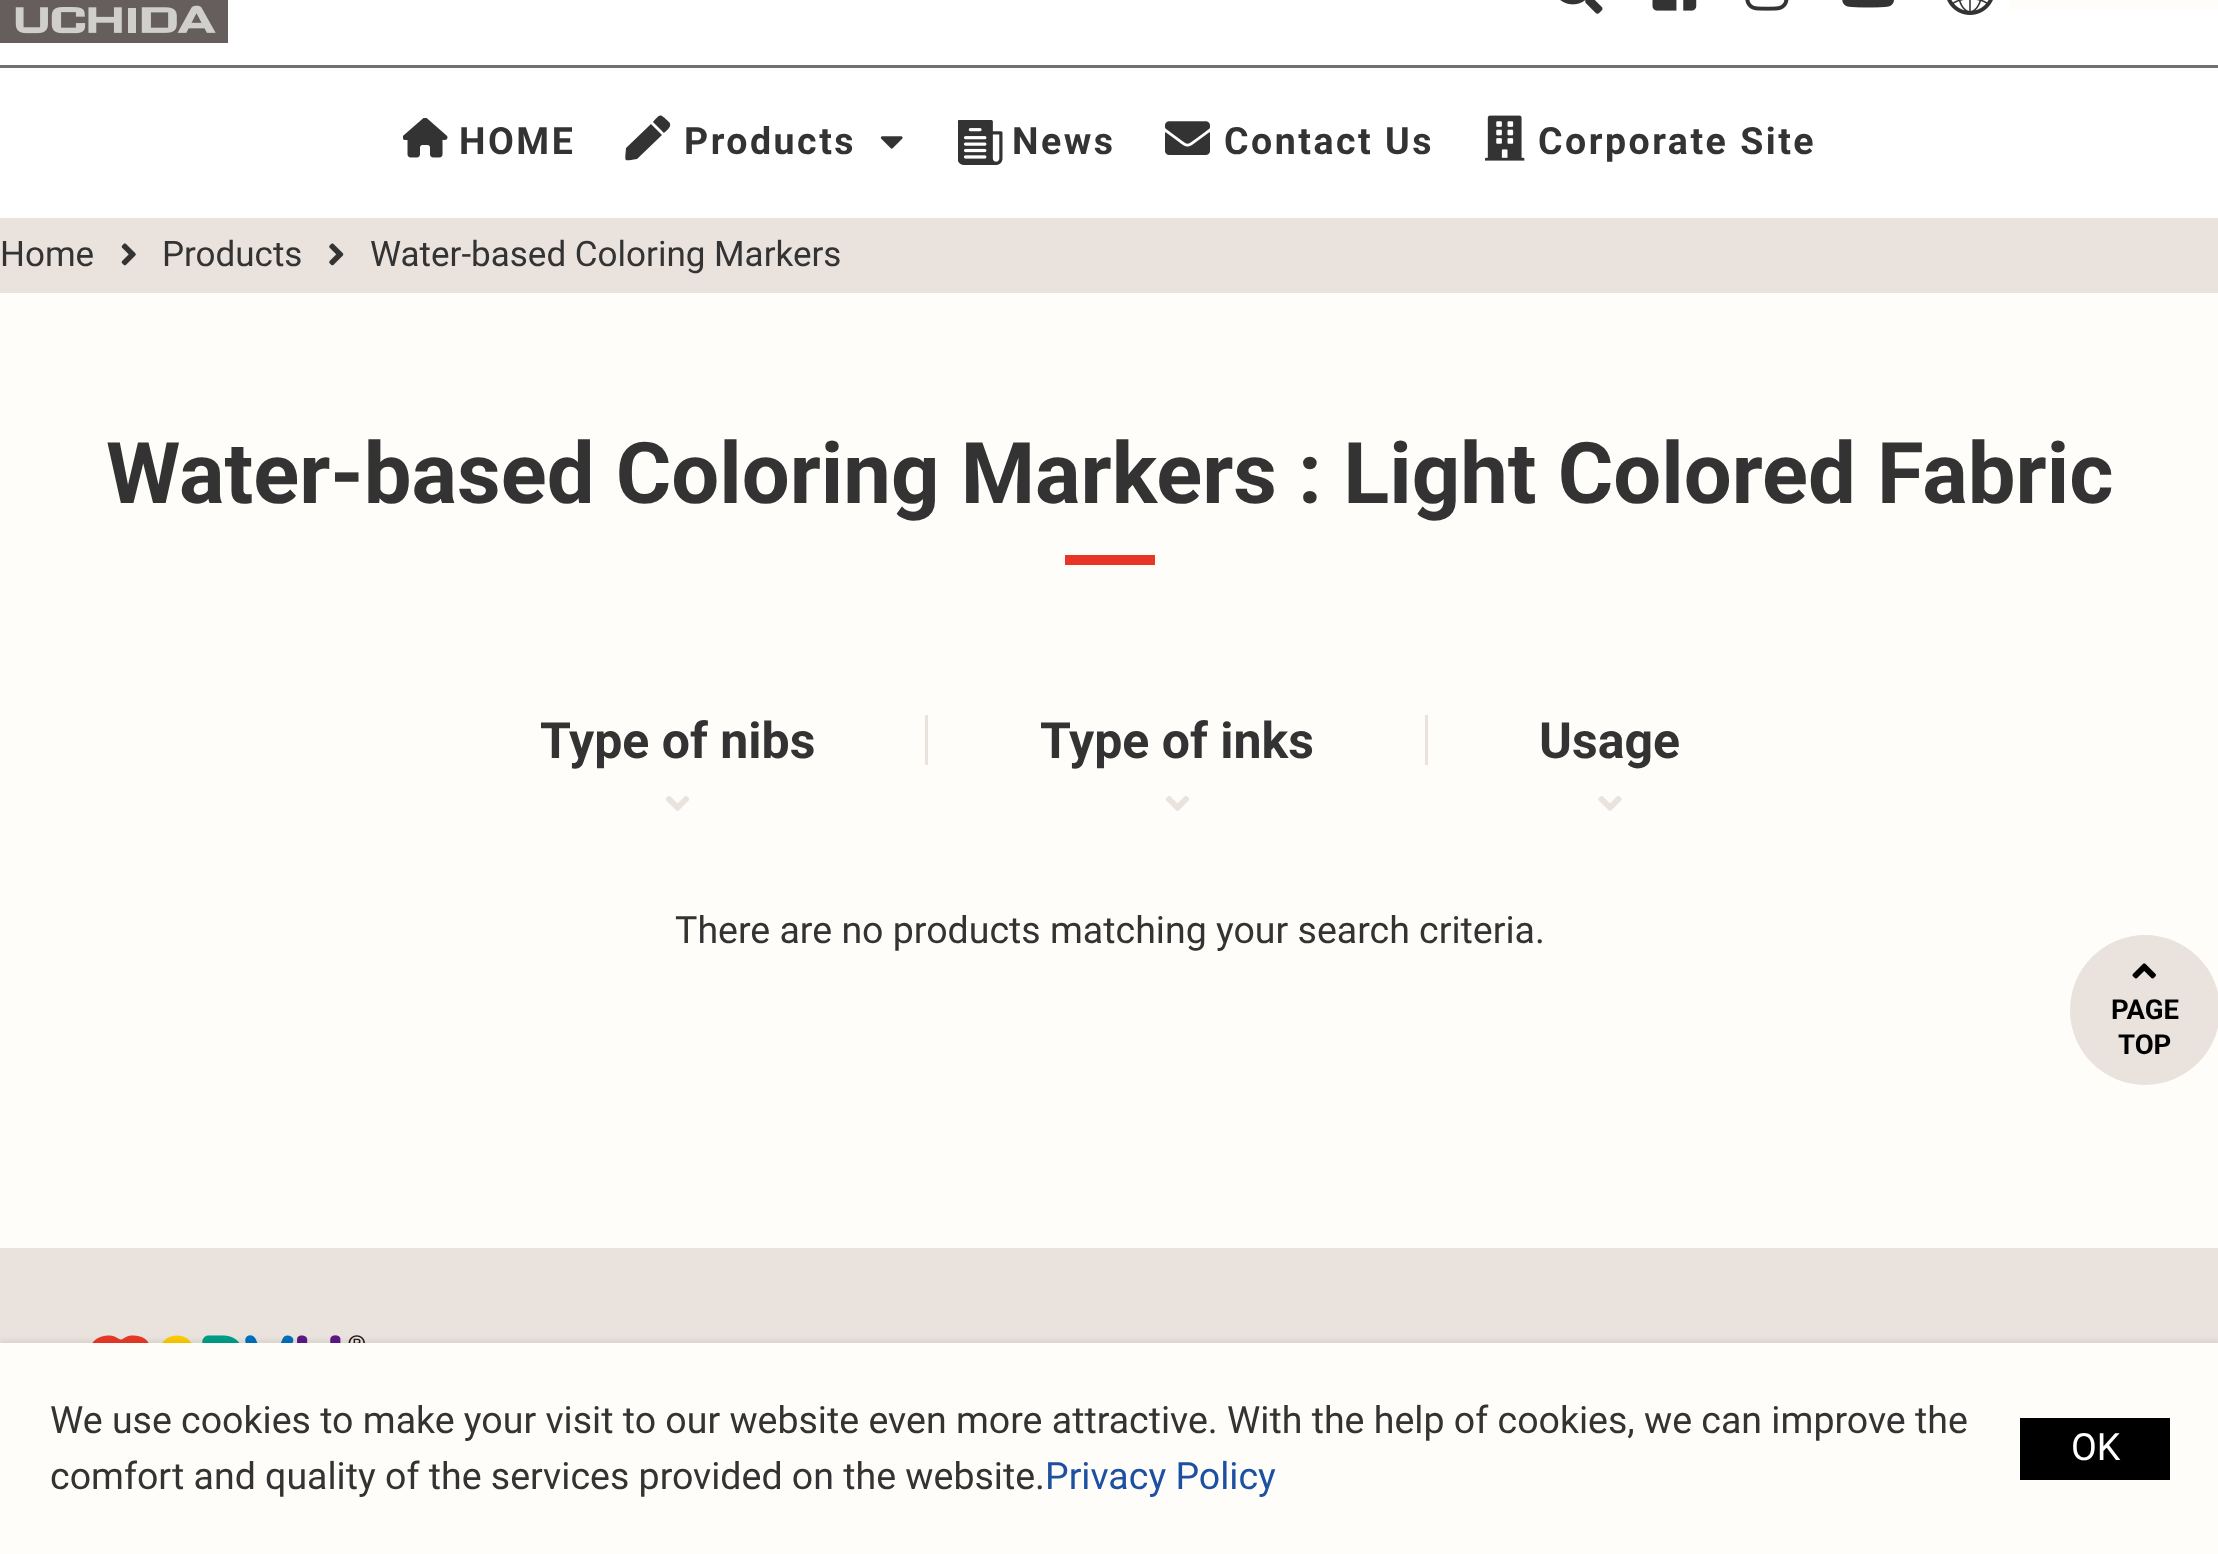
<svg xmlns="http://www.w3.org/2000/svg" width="2218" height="1554">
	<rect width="100%" height="100%" fill="#FFFDF9" />
	<rect x="0" y="0" width="2218" height="218" fill="#FFFFFF" />
	<rect x="0" y="65" width="2218" height="3" fill="#707070" />
	<image x="0" y="0" width="228" height="43" href="assets/img1.png" />
	<image x="1560" y="0" width="43" height="14" href="assets/img2.png" />
	<image x="1652" y="0" width="45" height="11" href="assets/img3.png" />
	<image x="1745" y="0" width="44" height="11" href="assets/img4.png" />
	<image x="1842" y="0" width="52" height="8" href="assets/img5.png" />
	<image x="1947" y="0" width="46" height="15" href="assets/img6.png" />
	<rect x="2010" y="0" width="208" height="10" fill="#FFFDF9" />
	<image x="403" y="118" width="45" height="40" href="assets/img7.png" />
	<text x="459" y="154" font-family="Roboto" font-size="37.5" font-weight="700" letter-spacing="2.5" fill="#333333">HOME</text>
	<path d="M651 124L662 135L637 159C623 161 625 163 626 148ZM669 122C673 126 666 131 664 133L653 122C661 113 660 114 669 122Z" fill="#333333" />
	<text x="684" y="154" font-family="Roboto" font-size="37.5" font-weight="700" letter-spacing="2.5" fill="#333333">Products</text>
	<image x="880" y="136" width="23" height="13" href="assets/img8.png" />
	<image x="958" y="120" width="45" height="45" href="assets/img9.png" />
	<text x="1012" y="154" font-family="Roboto" font-size="37.5" font-weight="700" letter-spacing="2.5" fill="#333333">News</text>
	<image x="1165" y="121" width="45" height="34" href="assets/img10.png" />
	<text x="1224" y="154" font-family="Roboto" font-size="37.5" font-weight="700" letter-spacing="2.5" fill="#333333">Contact Us</text>
	<image x="1485" y="115" width="40" height="46" href="assets/img11.png" />
	<text x="1538" y="154" font-family="Roboto" font-size="37.5" font-weight="700" letter-spacing="2.5" fill="#333333">Corporate Site</text>
	<rect x="0" y="218" width="2218" height="75" fill="#E9E2DD" />
	<text x="0" y="266" font-family="Roboto" font-size="35" fill="#333333">Home</text>
	<image x="121" y="243" width="15" height="23" href="assets/img12.png" />
	<text x="162" y="266" font-family="Roboto" font-size="35" fill="#333333">Products</text>
	<image x="329" y="243" width="15" height="23" href="assets/img13.png" />
	<text x="370" y="266" font-family="Roboto" font-size="35" fill="#333333">Water-based Coloring Markers</text>
	<text x="106" y="503" font-family="Roboto" font-size="85" font-weight="700" fill="#333333">Water-based Coloring Markers : Light Colored Fabric</text>
	<rect x="1065" y="555" width="90" height="10" fill="#E83525" />
	<text x="540" y="758" font-family="Roboto" font-size="50" font-weight="700" fill="#333333">Type of nibs</text>
	<rect x="925" y="715" width="3" height="50" fill="#E9E2DD" />
	<image x="665" y="796" width="25" height="15" href="assets/img14.png" />
	<text x="1040" y="758" font-family="Roboto" font-size="50" font-weight="700" fill="#333333">Type of inks</text>
	<rect x="1425" y="715" width="3" height="50" fill="#E9E2DD" />
	<image x="1165" y="796" width="25" height="15" href="assets/img14.png" />
	<text x="1539" y="758" font-family="Roboto" font-size="50" font-weight="700" fill="#333333">Usage</text>
	<image x="1598" y="796" width="24" height="15" href="assets/img15.png" />
	<text x="675" y="943" font-family="Roboto" font-size="37.5" fill="#333333">There are no products matching your search criteria.</text>
	<rect x="0" y="1248" width="2218" height="95" fill="#E9E2DD" />
	<circle cx="2145" cy="1010" r="75" fill="#E9E2DD" />
	<image x="2132" y="963" width="24" height="16" href="assets/img16.png" />
	<g font-family="Roboto" font-size="27.5" font-weight="700" fill="#000000">
		<text x="2111" y="1019">PAGE</text>
		<text x="2118" y="1054">TOP</text>
	</g>
	<image x="92" y="1335" width="273" height="8" href="assets/img17.png" />
	<rect x="0" y="1340" width="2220" height="213" fill="#000000" fill-opacity="0.06" filter="blur(2.5px)" />
	<rect x="0" y="1343" width="2218" height="211" fill="#FFFDF9" />
	<g font-family="Roboto" font-size="37.5" fill="#333333">
		<text x="50" y="1433">We use cookies to make your visit to our website even more attractive. With the help of cookies, we can improve the</text>
		<text x="50" y="1489">comfort and quality of the services provided on the website.</text>
	</g>
	<text x="1045" y="1489" font-family="Roboto" font-size="37.5" fill="#1E50A2">Privacy Policy</text>
	<rect x="2020" y="1418" width="150" height="62" fill="#000000" />
	<text x="2071" y="1460" font-family="Roboto" font-size="37.5" fill="#FFFFFF">OK</text>
</svg>
